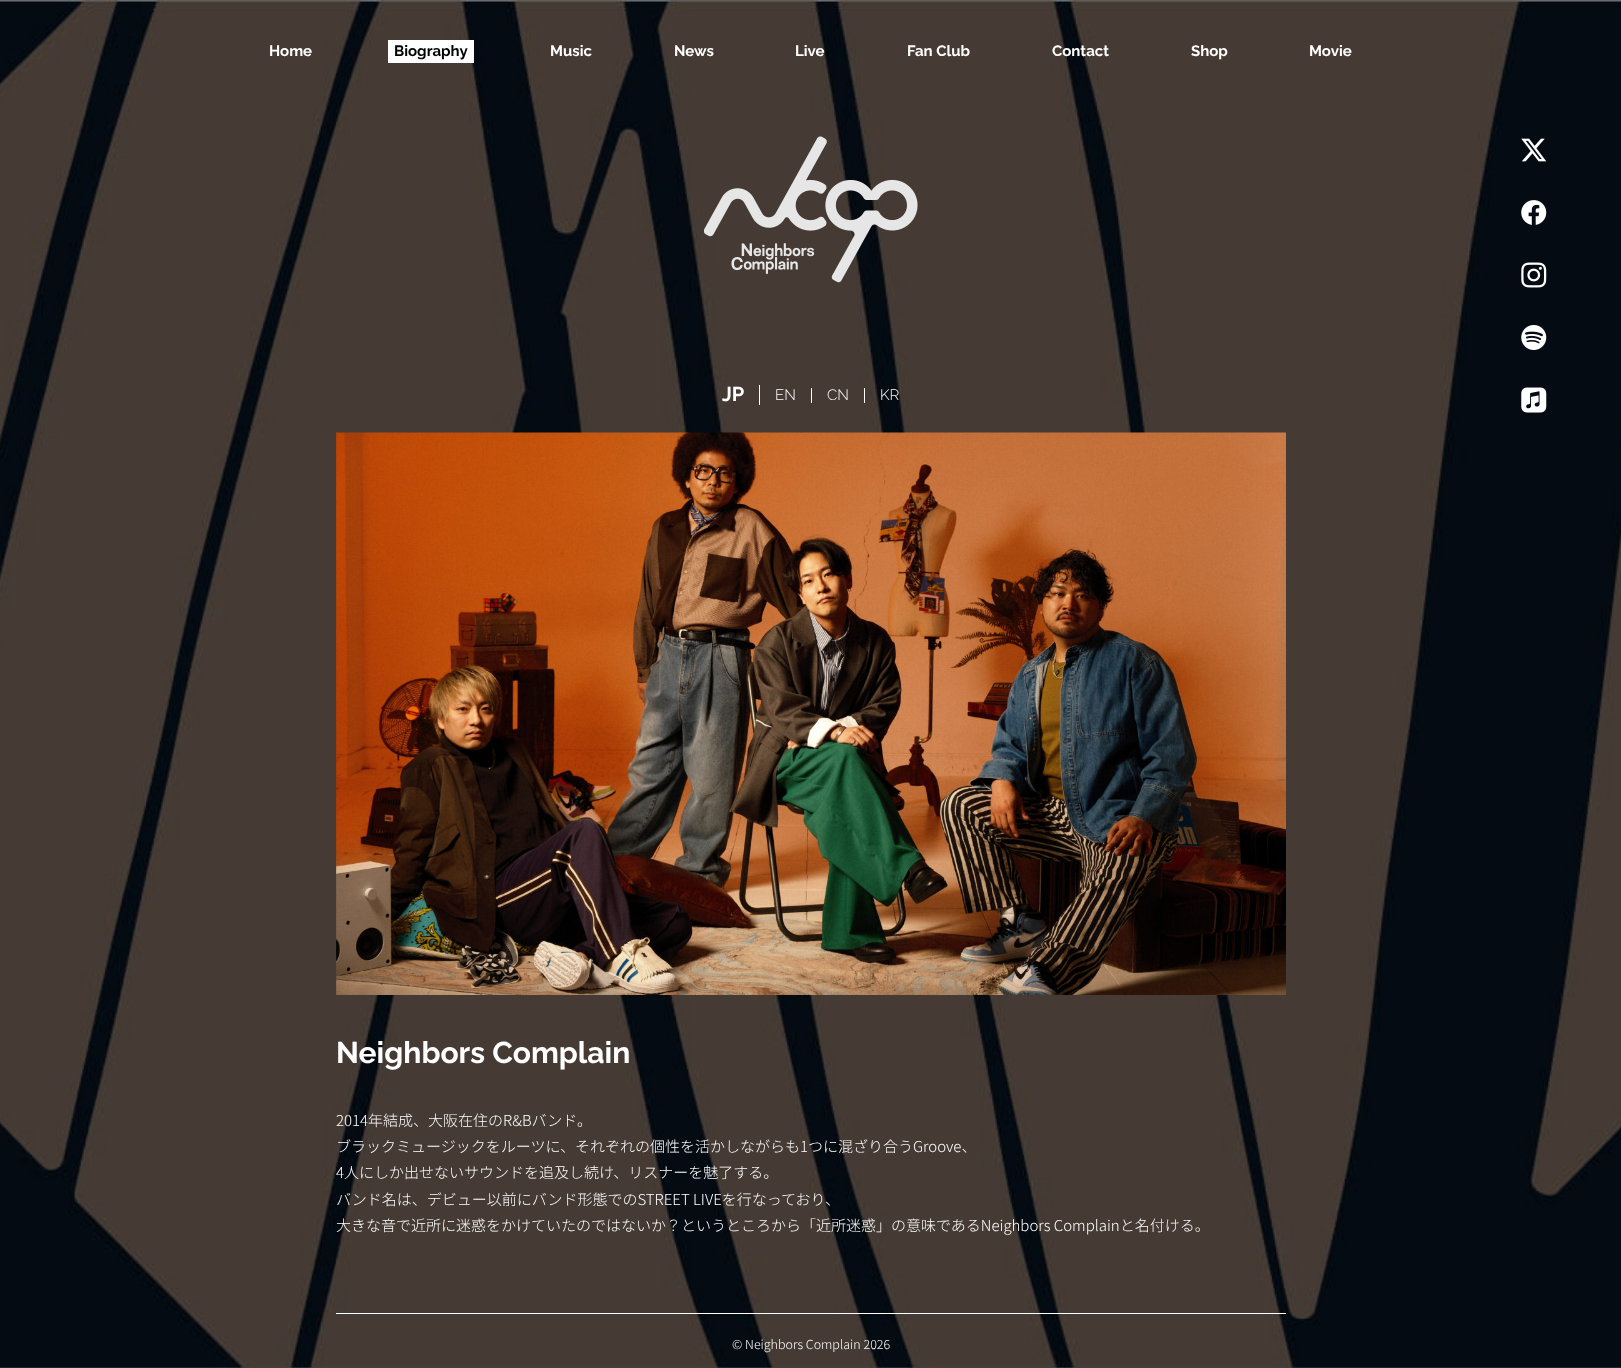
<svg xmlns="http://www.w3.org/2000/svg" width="1621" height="1368">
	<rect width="100%" height="100%" fill="#FFFFFF" />
	<image x="0" y="0" width="1621" height="1368" href="assets/img1.png" />
	<text x="269" y="56" font-family="Raleway" font-size="15" font-weight="700" fill="#FFFFFF">Home</text>
	<rect x="388" y="40" width="86" height="23" fill="#FFFFFF" />
	<text x="394" y="56" font-family="Raleway" font-size="15" font-weight="700" fill="#000000">Biography</text>
	<g font-family="Raleway" font-size="15" font-weight="700" fill="#FFFFFF">
		<text x="550" y="56">Music</text>
		<text x="674" y="56">News</text>
		<text x="795" y="56">Live</text>
		<text x="907" y="56">Fan Club</text>
		<text x="1052" y="56">Contact</text>
		<text x="1191" y="56">Shop</text>
		<text x="1309" y="56">Movie</text>
	</g>
	<image x="1521" y="138" width="26" height="24" href="assets/img2.png" />
	<image x="1521" y="200" width="26" height="25" href="assets/img3.png" />
	<image x="1521" y="262" width="26" height="26" href="assets/img4.png" />
	<image x="1521" y="325" width="26" height="25" href="assets/img5.png" />
	<image x="1521" y="387" width="26" height="26" href="assets/img6.png" />
	<image x="704" y="136" width="214" height="147" href="assets/img7.png" />
	<rect x="759" y="385" width="1" height="20" fill="#FFFFFF" />
	<text x="722" y="401" font-family="Raleway" font-size="20" font-weight="700" fill="#FFFFFF">JP</text>
	<rect x="811" y="388" width="1" height="15" fill="#FFFFFF" />
	<text x="775" y="400" font-family="Raleway" font-size="15" font-weight="300" fill="#FFFFFF">EN</text>
	<rect x="864" y="388" width="1" height="15" fill="#FFFFFF" />
	<g font-family="Raleway" font-size="15" font-weight="300" fill="#FFFFFF">
		<text x="827" y="400">CN</text>
		<text x="880" y="400">KR</text>
	</g>
	<image x="336" y="432" width="950" height="563" href="assets/img8.png" />
	<text x="336" y="1063" font-family="Raleway" font-size="30" font-weight="700" fill="#FFFFFF">Neighbors Complain</text>
	<g font-family="Noto Sans JP" font-size="15" font-weight="300" fill="#FFFFFF">
		<text x="336" y="1126">2014年結成、大阪在住のR&amp;Bバンド。</text>
		<text x="336" y="1152">ブラックミュージックをルーツに、それぞれの個性を活かしながらも1つに混ざり合うGroove、</text>
		<text x="336" y="1178">4人にしか出せないサウンドを追及し続け、リスナーを魅了する。</text>
		<text x="336" y="1205">バンド名は、デビュー以前にバンド形態でのSTREET LIVEを行なっており、</text>
		<text x="336" y="1231">大きな音で近所に迷惑をかけていたのではないか？というところから「近所迷惑」の意味であるNeighbors Complainと名付ける。</text>
	</g>
	<rect x="336" y="1313" width="950" height="1" fill="#FFFFFF" />
	<text x="732" y="1349" font-family="Noto Sans JP" font-size="12.5" font-weight="300" fill="#FFFFFF">© Neighbors Complain 2026</text>
</svg>
